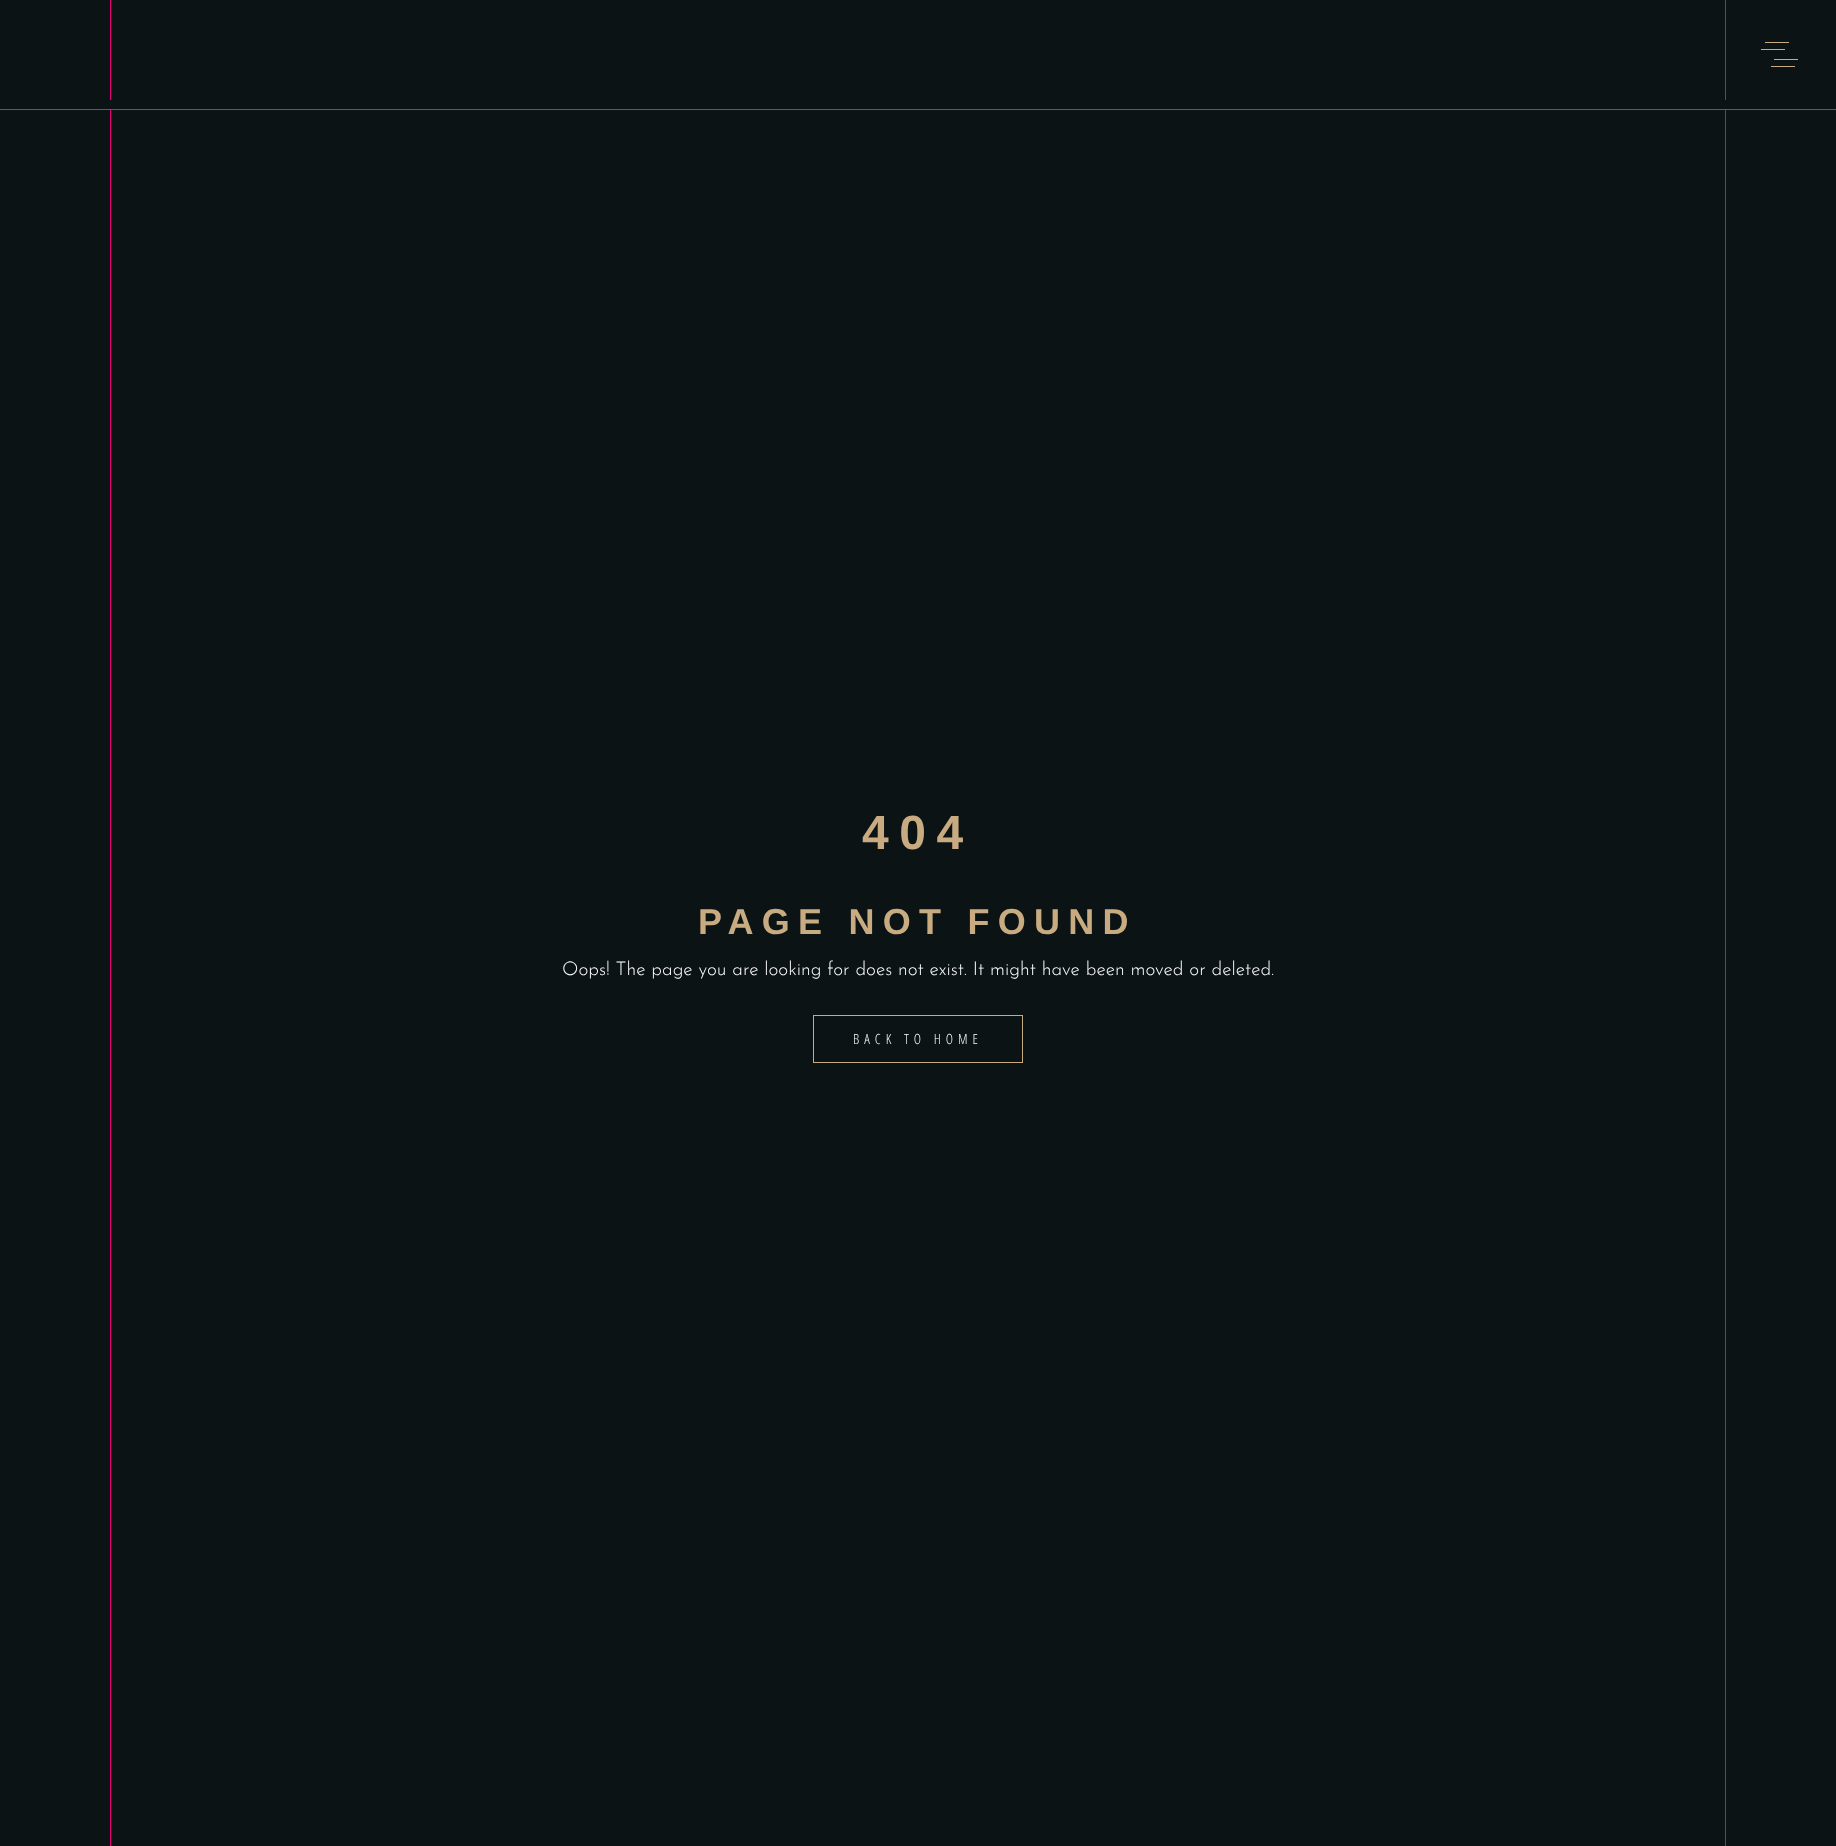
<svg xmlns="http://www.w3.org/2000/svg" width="1836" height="1846">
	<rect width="100%" height="100%" fill="#0B1315" />
	<rect x="110" y="0" width="1" height="100" fill="#E6007E" />
	<rect x="1725" y="0" width="1" height="100" fill="#E6007E" />
	<rect x="0" y="109" width="1836" height="1" fill="#715B3E" />
	<rect x="1765" y="42" width="24" height="1" fill="#C9AB81" />
	<rect x="1761" y="49" width="24" height="1" fill="#C9AB81" />
	<rect x="1774" y="59" width="24" height="1" fill="#C9AB81" />
	<rect x="1771" y="66" width="24" height="1" fill="#C9AB81" />
	<rect x="110" y="110" width="1" height="1736" fill="#E6007E" />
	<text x="862" y="849" font-family="Liberation Sans" font-size="48" font-weight="700" letter-spacing="10.5" fill="#C9AB81">404</text>
	<text x="698" y="934" font-family="Liberation Sans" font-size="36" font-weight="700" letter-spacing="8.25" fill="#C9AB81">PAGE NOT FOUND</text>
	<text x="562" y="975" font-family="Josefin Sans" font-size="19" font-weight="300" fill="#FFFFFF">Oops! The page you are looking for does not exist. It might have been moved or deleted.</text>
	<rect x="813.5" y="1015.5" width="209" height="47" fill="none" stroke="#C9AB81" />
	<text x="853" y="1044" font-family="Open Sans Condensed" font-size="14" font-weight="300" letter-spacing="5" fill="#FFFFFF">BACK TO HOME</text>
	<rect x="1725" y="110" width="1" height="1736" fill="#E6007E" />
</svg>
